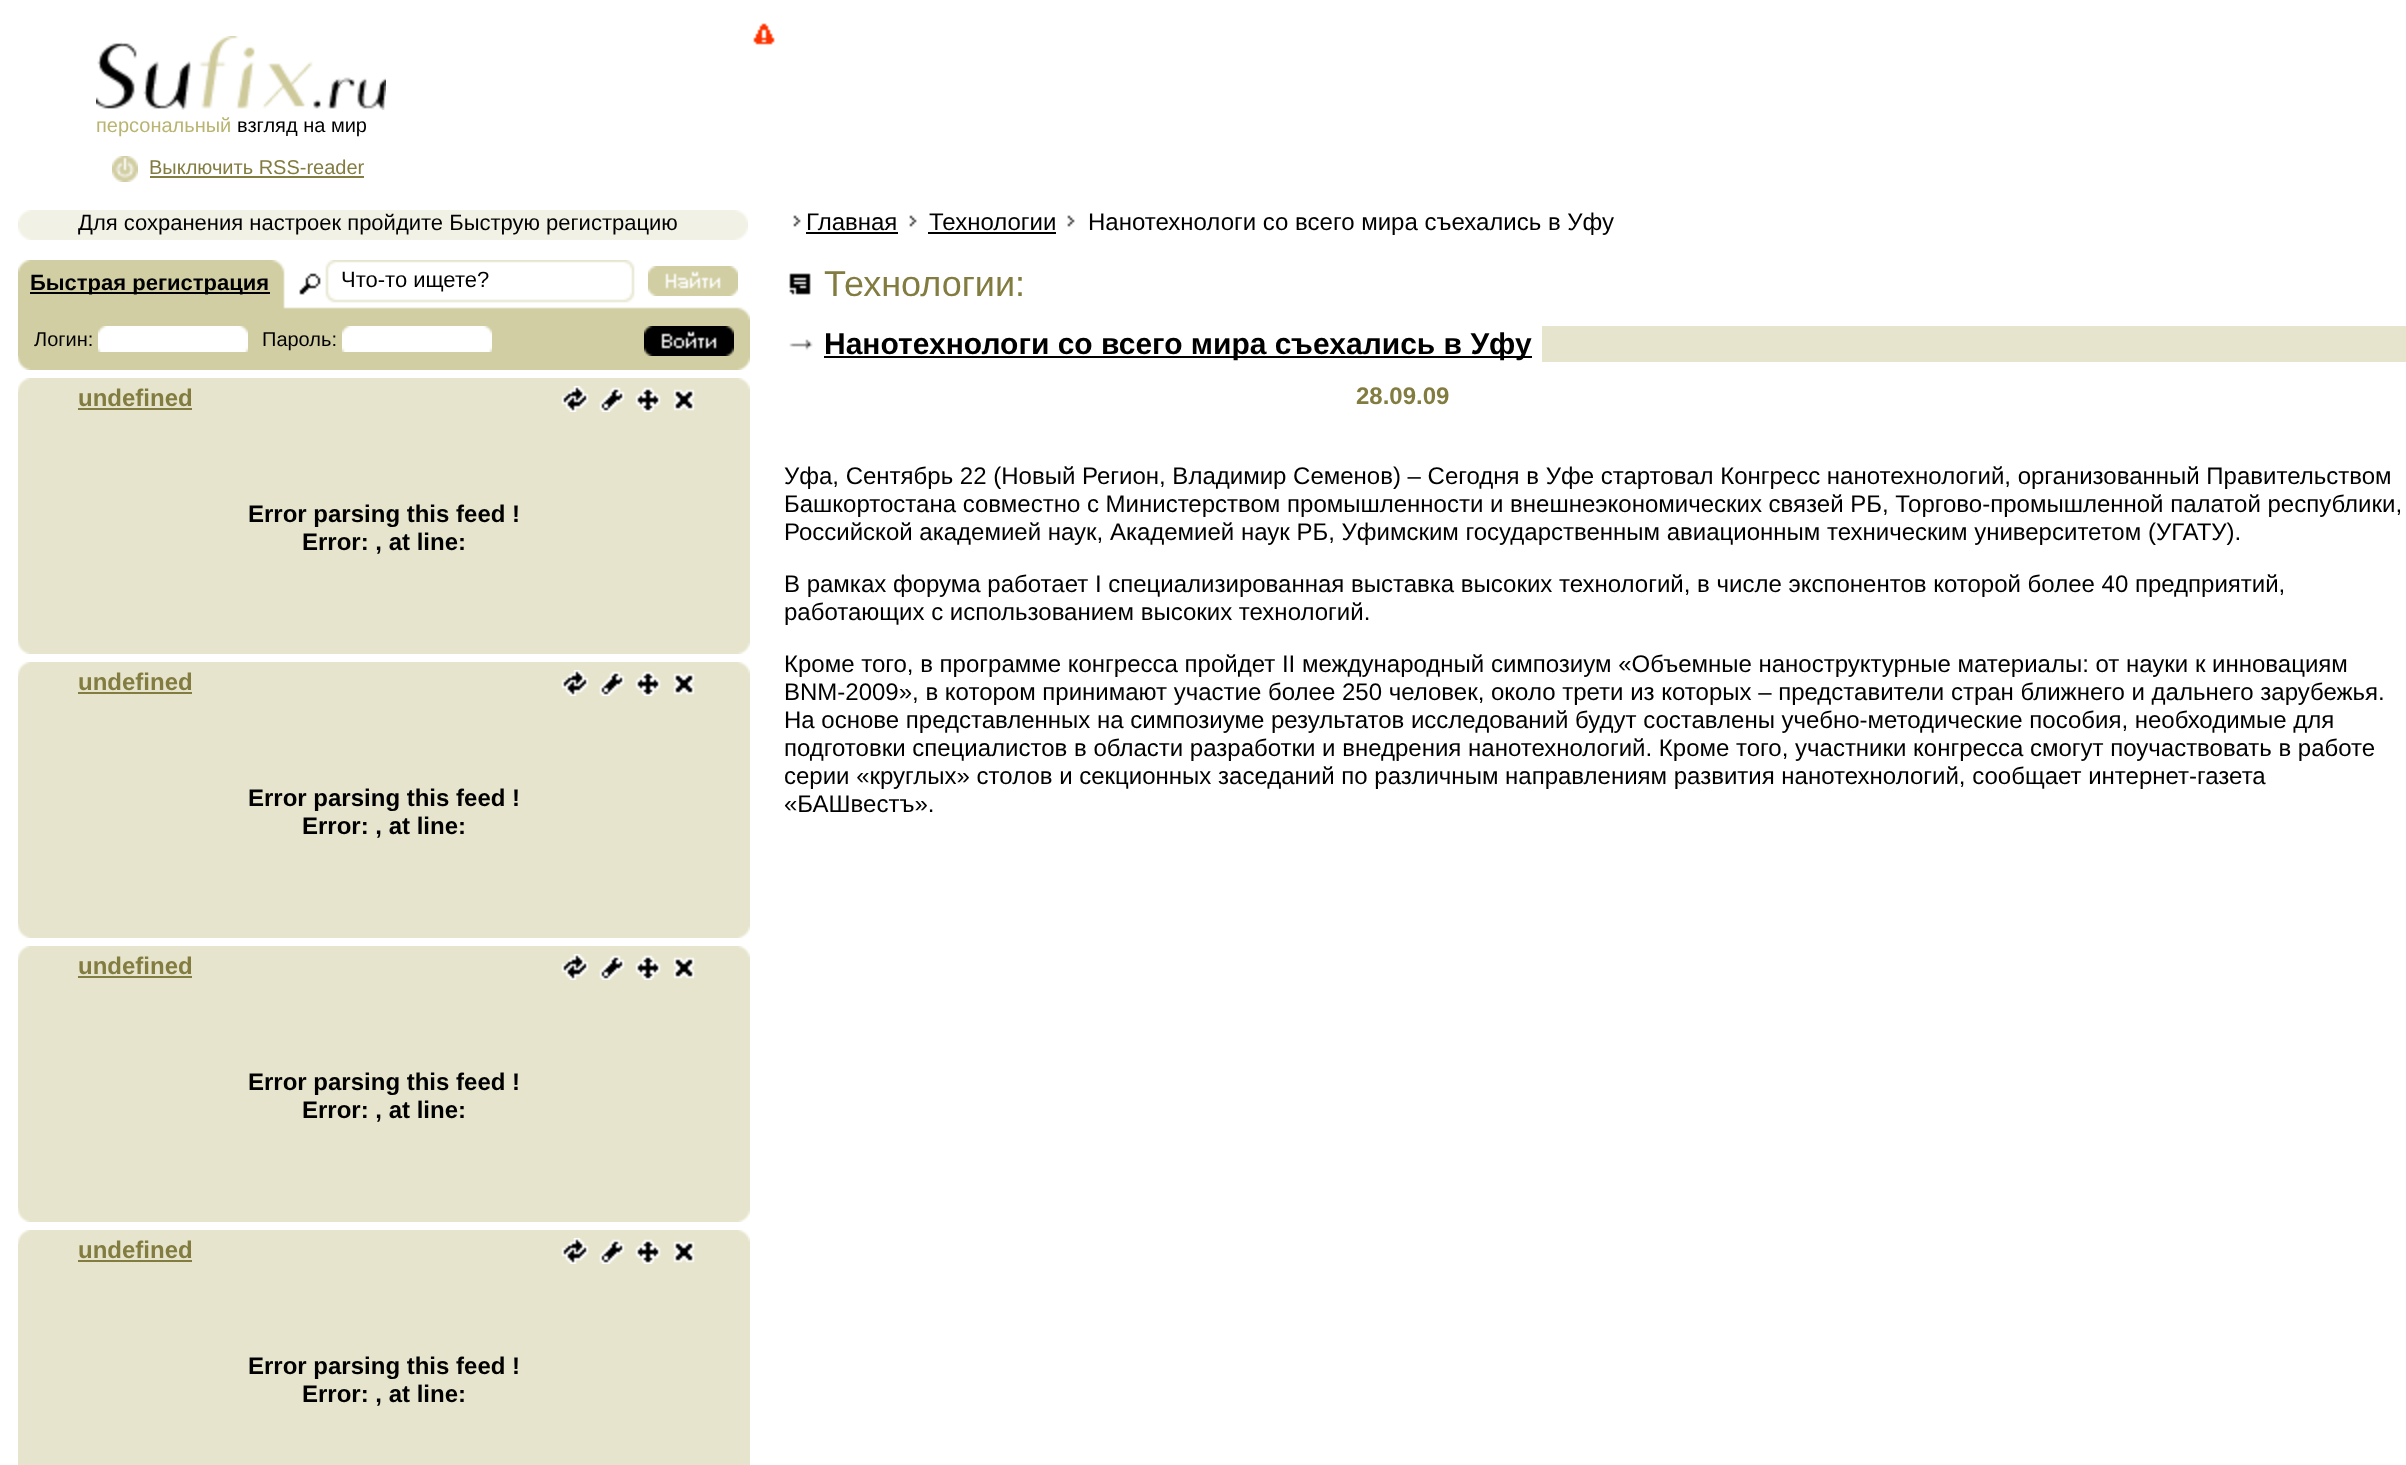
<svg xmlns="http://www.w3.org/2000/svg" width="2406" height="1465">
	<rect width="100%" height="100%" fill="#FFFFFF" />
	<image x="96" y="36" width="290" height="74" href="assets/img1.png" />
	<image x="753" y="23" width="22" height="22" href="assets/img2.png" />
	<text x="96" y="132" font-family="Liberation Sans" font-size="20" fill="#B9B471">персональный</text>
	<text x="237" y="132" font-family="Liberation Sans" font-size="20" fill="#000000">взгляд на мир</text>
	<image x="112" y="156" width="26" height="26" href="assets/img3.png" />
	<text x="149" y="174" font-family="Liberation Sans" font-size="20" fill="#827C40">Выключить RSS-reader</text>
	<rect x="150" y="176" width="214" height="2" fill="#827C40" />
	<image x="18" y="210" width="730" height="30" href="assets/img4.png" />
	<text x="78" y="230" font-family="Liberation Sans" font-size="22" fill="#000000">Для сохранения настроек пройдите Быструю регистрацию</text>
	<image x="793" y="215" width="8" height="12" href="assets/img5.png" />
	<text x="806" y="230" font-family="Liberation Sans" font-size="24" fill="#000000">Главная</text>
	<rect x="806" y="232" width="92" height="2" fill="#000000" />
	<image x="909" y="215" width="8" height="12" href="assets/img5.png" />
	<text x="929" y="230" font-family="Liberation Sans" font-size="24" fill="#000000">Технологии</text>
	<rect x="928" y="232" width="128" height="2" fill="#000000" />
	<image x="1067" y="215" width="8" height="12" href="assets/img5.png" />
	<text x="1088" y="230" font-family="Liberation Sans" font-size="24" fill="#000000">Нанотехнологи со всего мира съехались в Уфу</text>
	<image x="789" y="273" width="22" height="22" href="assets/img6.png" />
	<text x="824" y="296" font-family="Liberation Sans" font-size="36" fill="#827C40">Технологии:</text>
	<rect x="1542" y="326" width="864" height="36" fill="#E6E4CC" />
	<image x="789" y="339" width="24" height="12" href="assets/img7.png" />
	<rect x="824" y="356" width="708" height="2" fill="#000000" />
	<text x="824" y="354" font-family="Liberation Sans" font-size="30" font-weight="700" fill="#000000">Нанотехнологи со всего мира съехались в Уфу</text>
	<text x="1356" y="404" font-family="Liberation Sans" font-size="24" font-weight="700" fill="#827C40">28.09.09</text>
	<g font-family="Liberation Sans" font-size="24" fill="#000000">
		<text x="784" y="484">Уфа, Сентябрь 22 (Новый Регион, Владимир Семенов) – Сегодня в Уфе стартовал Конгресс нанотехнологий, организованный Правительством</text>
		<text x="784" y="512">Башкортостана совместно с Министерством промышленности и внешнеэкономических связей РБ, Торгово-промышленной палатой республики,</text>
		<text x="784" y="540">Российской академией наук, Академией наук РБ, Уфимским государственным авиационным техническим университетом (УГАТУ).</text>
		<text x="784" y="592">В рамках форума работает I специализированная выставка высоких технологий, в числе экспонентов которой более 40 предприятий,</text>
		<text x="784" y="620">работающих с использованием высоких технологий.</text>
		<text x="784" y="672">Кроме того, в программе конгресса пройдет II международный симпозиум «Объемные наноструктурные материалы: от науки к инновациям</text>
		<text x="784" y="700">BNM-2009», в котором принимают участие более 250 человек, около трети из которых – представители стран ближнего и дальнего зарубежья.</text>
		<text x="784" y="728">На основе представленных на симпозиуме результатов исследований будут составлены учебно-методические пособия, необходимые для</text>
		<text x="784" y="756">подготовки специалистов в области разработки и внедрения нанотехнологий. Кроме того, участники конгресса смогут поучаствовать в работе</text>
		<text x="784" y="784">серии «круглых» столов и секционных заседаний по различным направлениям развития нанотехнологий, сообщает интернет-газета</text>
		<text x="784" y="812">«БАШвестъ».</text>
	</g>
	<rect x="18" y="320" width="732" height="50" fill="#D1CEA3" />
	<image x="18" y="260" width="732" height="60" href="assets/img8.png" />
	<rect x="30" y="292" width="240" height="2" fill="#000000" />
	<text x="30" y="290" font-family="Liberation Sans" font-size="22" font-weight="700" fill="#000000">Быстрая регистрация</text>
	<text x="341" y="287" font-family="Liberation Sans" font-size="22" fill="#000000">Что-то ищете?</text>
	<image x="648" y="266" width="90" height="30" href="assets/img9.png" />
	<text x="34" y="346" font-family="Liberation Sans" font-size="20" fill="#000000">Логин:</text>
	<image x="98" y="326" width="150" height="26" href="assets/img10.png" />
	<text x="262" y="346" font-family="Liberation Sans" font-size="20" fill="#000000">Пароль:</text>
	<image x="342" y="326" width="150" height="26" href="assets/img10.png" />
	<image x="644" y="326" width="90" height="30" href="assets/img11.png" />
	<image x="18" y="356" width="732" height="14" href="assets/img12.png" />
	<rect x="18" y="378" width="732" height="276" fill="#E6E4CC" />
	<image x="18" y="378" width="732" height="14" href="assets/img13.png" />
	<text x="78" y="406" font-family="Liberation Sans" font-size="24" font-weight="700" fill="#827C40">undefined</text>
	<rect x="78" y="408" width="114" height="2" fill="#827C40" />
	<image x="561" y="386" width="28" height="26" href="assets/img14.png" />
	<image x="599" y="387" width="26" height="25" href="assets/img15.png" />
	<image x="635" y="387" width="26" height="25" href="assets/img16.png" />
	<image x="673" y="389" width="22" height="22" href="assets/img17.png" />
	<g font-family="Liberation Sans" font-size="24" font-weight="700" fill="#000000">
		<text x="248" y="522">Error parsing this feed !</text>
		<text x="302" y="550">Error: , at line:</text>
	</g>
	<image x="18" y="640" width="732" height="14" href="assets/img18.png" />
	<rect x="18" y="662" width="732" height="276" fill="#E6E4CC" />
	<image x="18" y="662" width="732" height="14" href="assets/img13.png" />
	<text x="78" y="690" font-family="Liberation Sans" font-size="24" font-weight="700" fill="#827C40">undefined</text>
	<rect x="78" y="692" width="114" height="2" fill="#827C40" />
	<image x="561" y="670" width="28" height="26" href="assets/img14.png" />
	<image x="599" y="671" width="26" height="25" href="assets/img15.png" />
	<image x="635" y="671" width="26" height="25" href="assets/img16.png" />
	<image x="673" y="673" width="22" height="22" href="assets/img17.png" />
	<g font-family="Liberation Sans" font-size="24" font-weight="700" fill="#000000">
		<text x="248" y="806">Error parsing this feed !</text>
		<text x="302" y="834">Error: , at line:</text>
	</g>
	<image x="18" y="924" width="732" height="14" href="assets/img18.png" />
	<rect x="18" y="946" width="732" height="276" fill="#E6E4CC" />
	<image x="18" y="946" width="732" height="14" href="assets/img13.png" />
	<text x="78" y="974" font-family="Liberation Sans" font-size="24" font-weight="700" fill="#827C40">undefined</text>
	<rect x="78" y="976" width="114" height="2" fill="#827C40" />
	<image x="561" y="954" width="28" height="26" href="assets/img14.png" />
	<image x="599" y="955" width="26" height="25" href="assets/img15.png" />
	<image x="635" y="955" width="26" height="25" href="assets/img16.png" />
	<image x="673" y="957" width="22" height="22" href="assets/img17.png" />
	<g font-family="Liberation Sans" font-size="24" font-weight="700" fill="#000000">
		<text x="248" y="1090">Error parsing this feed !</text>
		<text x="302" y="1118">Error: , at line:</text>
	</g>
	<image x="18" y="1208" width="732" height="14" href="assets/img18.png" />
	<rect x="18" y="1230" width="732" height="235" fill="#E6E4CC" />
	<image x="18" y="1230" width="732" height="14" href="assets/img13.png" />
	<text x="78" y="1258" font-family="Liberation Sans" font-size="24" font-weight="700" fill="#827C40">undefined</text>
	<rect x="78" y="1260" width="114" height="2" fill="#827C40" />
	<image x="561" y="1238" width="28" height="26" href="assets/img14.png" />
	<image x="599" y="1239" width="26" height="25" href="assets/img15.png" />
	<image x="635" y="1239" width="26" height="25" href="assets/img16.png" />
	<image x="673" y="1241" width="22" height="22" href="assets/img17.png" />
	<g font-family="Liberation Sans" font-size="24" font-weight="700" fill="#000000">
		<text x="248" y="1374">Error parsing this feed !</text>
		<text x="302" y="1402">Error: , at line:</text>
	</g>
</svg>
